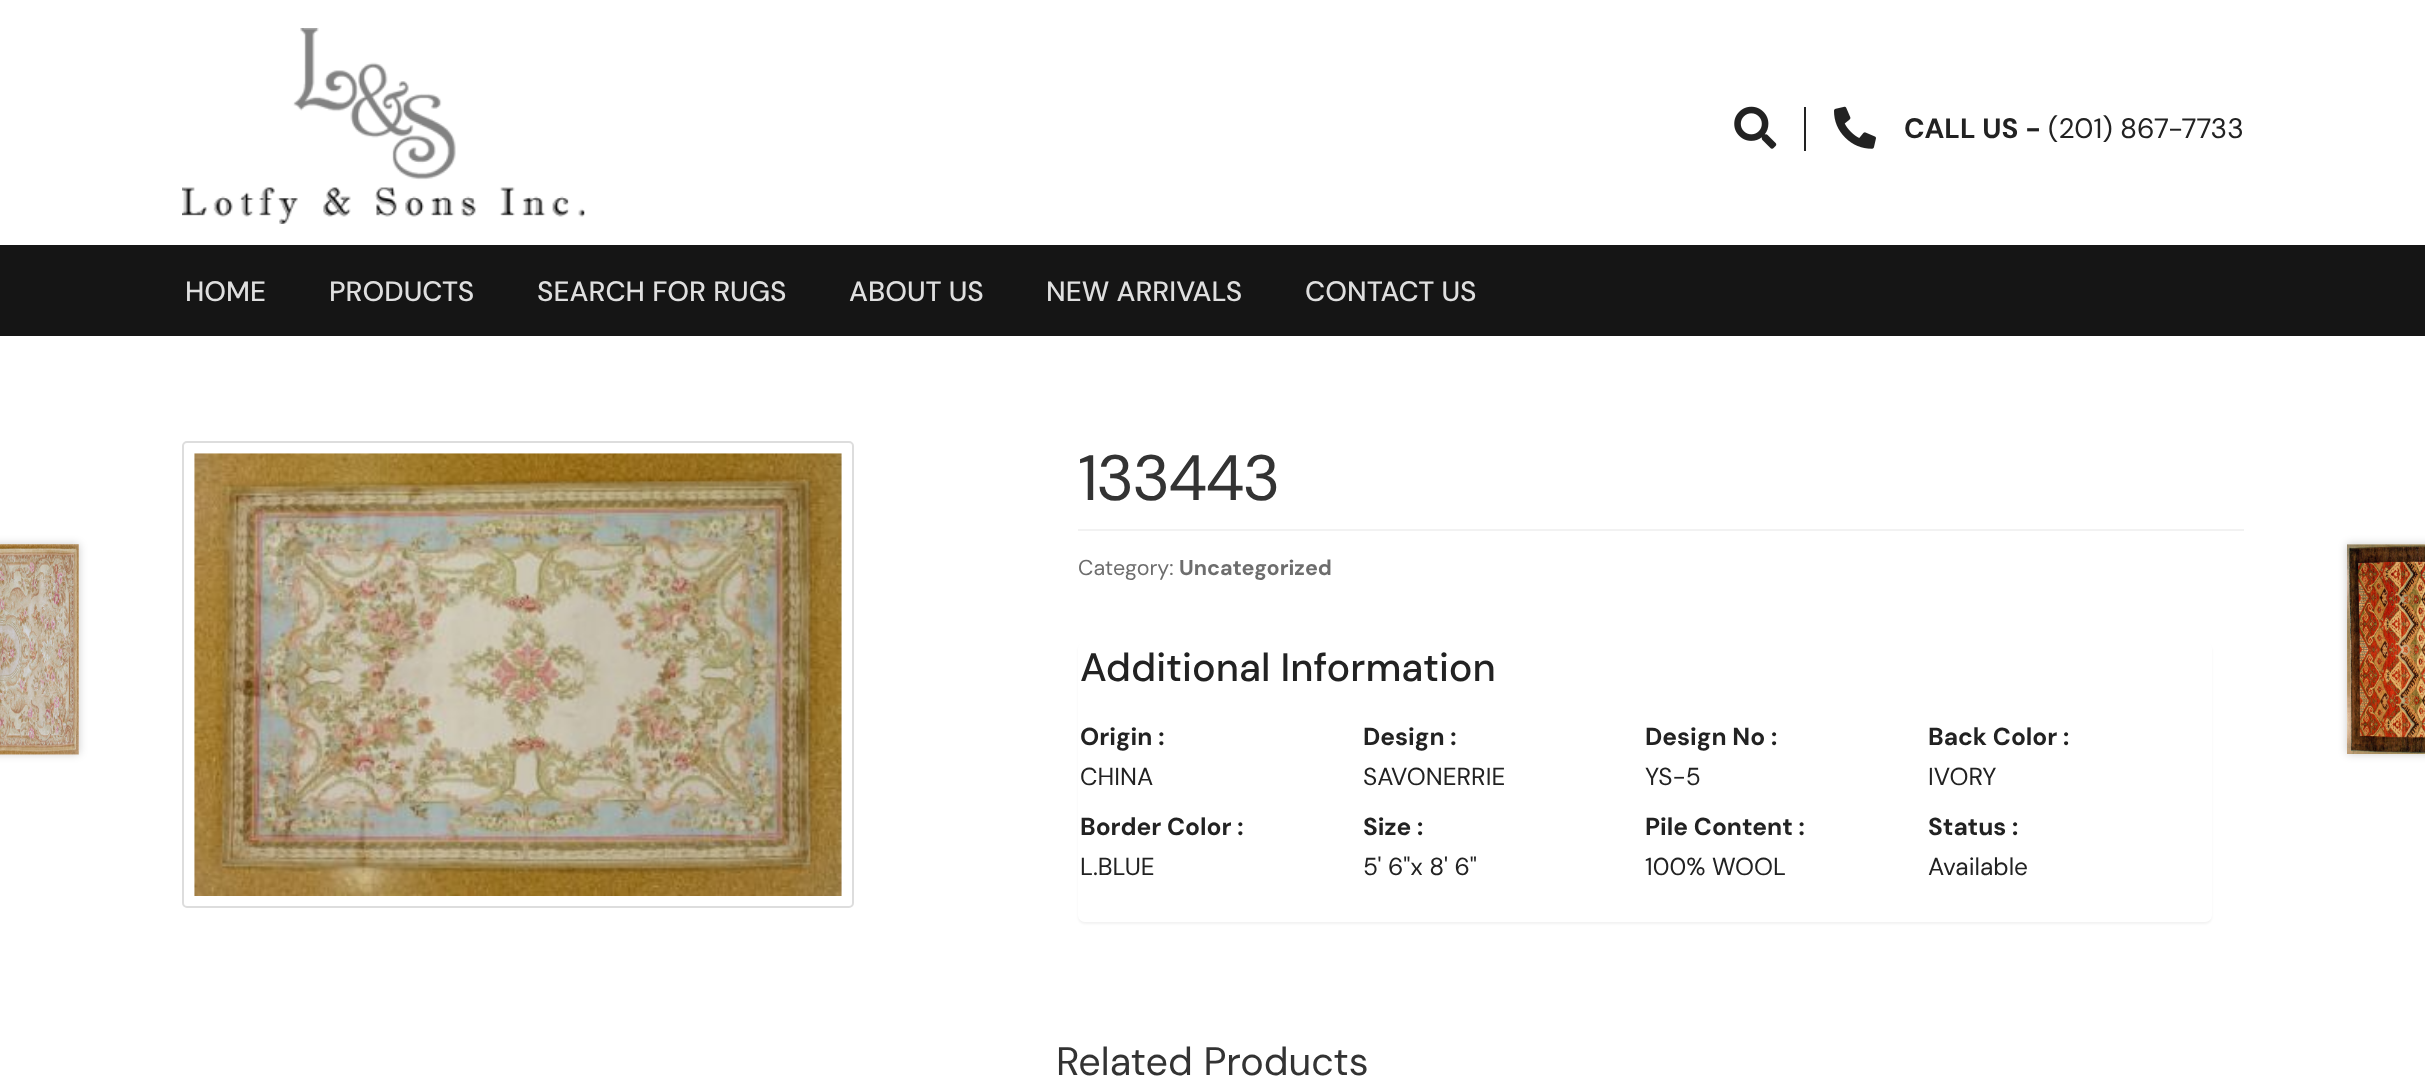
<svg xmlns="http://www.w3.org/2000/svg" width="2425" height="1086">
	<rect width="100%" height="100%" fill="#FFFFFF" />
	<image x="182" y="28" width="403" height="196" href="assets/img1.png" />
	<image x="1734" y="106" width="43" height="43" href="assets/img2.png" />
	<rect x="1804" y="107" width="2" height="44" fill="#222222" />
	<image x="1834" y="106" width="42" height="43" href="assets/img3.png" />
	<text x="1904" y="138" font-family="DM Sans" font-size="28" font-weight="700" fill="#222222">CALL US -</text>
	<text x="2048" y="138" font-family="DM Sans" font-size="28" fill="#222222">(201) 867-7733</text>
	<rect x="0" y="245" width="2425" height="91" fill="#151515" />
	<g font-family="DM Sans" font-size="28" font-weight="500" fill="#DFDFDF">
		<text x="185" y="301">HOME</text>
		<text x="329" y="301">PRODUCTS</text>
		<text x="537" y="301">SEARCH FOR RUGS</text>
		<text x="849" y="301">ABOUT US</text>
		<text x="1046" y="301">NEW ARRIVALS</text>
		<text x="1305" y="301">CONTACT US</text>
	</g>
	<rect x="183" y="442" width="670" height="465" rx="4" fill="none" stroke="#DDDDDD" stroke-width="2" />
	<image x="194" y="453" width="648" height="443" href="assets/img4.png" />
	<text x="1078" y="500" font-family="DM Sans" font-size="64" letter-spacing="-1.75" fill="#333333">133443</text>
	<rect x="1078" y="529" width="1166" height="2" fill="#F2F2F2" />
	<text x="1078" y="575" font-family="DM Sans" font-size="21.5" fill="#6D6D6D">Category:</text>
	<text x="1179" y="575" font-family="DM Sans" font-size="21.5" font-weight="700" fill="#6D6D6D">Uncategorized</text>
	<rect x="-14" y="544" width="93" height="210" fill="#000000" fill-opacity="0.2" filter="blur(4.5px)" />
	<rect x="0" y="544" width="79" height="210" fill="#FFFFFF" />
	<image x="0" y="544" width="79" height="211" href="assets/img5.png" />
	<rect x="2347" y="544" width="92" height="210" fill="#000000" fill-opacity="0.2" filter="blur(4.5px)" />
	<rect x="2347" y="544" width="78" height="210" fill="#FFFFFF" />
	<image x="2347" y="544" width="78" height="210" href="assets/img6.png" />
	<rect x="1078" y="644" width="1134" height="280" rx="7" fill="#000000" fill-opacity="0.05" filter="blur(1px)" />
	<rect x="1078" y="642" width="1134" height="280" rx="7" fill="#FFFFFF" />
	<text x="1080" y="681" font-family="DM Sans" font-size="39.6" font-weight="500" fill="#222222">Additional Information</text>
	<text x="1080" y="745" font-family="DM Sans" font-size="24.5" font-weight="700" fill="#222222">Origin :</text>
	<text x="1080" y="785" font-family="DM Sans" font-size="24.5" fill="#222222">CHINA</text>
	<text x="1363" y="745" font-family="DM Sans" font-size="24.5" font-weight="700" fill="#222222">Design :</text>
	<text x="1363" y="785" font-family="DM Sans" font-size="24.5" fill="#222222">SAVONERRIE</text>
	<text x="1645" y="745" font-family="DM Sans" font-size="24.5" font-weight="700" fill="#222222">Design No :</text>
	<text x="1645" y="785" font-family="DM Sans" font-size="24.5" fill="#222222">YS-5</text>
	<text x="1928" y="745" font-family="DM Sans" font-size="24.5" font-weight="700" fill="#222222">Back Color :</text>
	<text x="1928" y="785" font-family="DM Sans" font-size="24.5" fill="#222222">IVORY</text>
	<text x="1080" y="835" font-family="DM Sans" font-size="24.5" font-weight="700" fill="#222222">Border Color :</text>
	<text x="1080" y="875" font-family="DM Sans" font-size="24.5" fill="#222222">L.BLUE</text>
	<text x="1363" y="835" font-family="DM Sans" font-size="24.5" font-weight="700" fill="#222222">Size :</text>
	<text x="1363" y="875" font-family="DM Sans" font-size="24.5" fill="#222222">5' 6"x 8' 6"</text>
	<text x="1645" y="835" font-family="DM Sans" font-size="24.5" font-weight="700" fill="#222222">Pile Content :</text>
	<text x="1645" y="875" font-family="DM Sans" font-size="24.5" fill="#222222">100% WOOL</text>
	<text x="1928" y="835" font-family="DM Sans" font-size="24.5" font-weight="700" fill="#222222">Status :</text>
	<text x="1928" y="875" font-family="DM Sans" font-size="24.5" fill="#222222">Available</text>
	<text x="1056" y="1075" font-family="DM Sans" font-size="39.6" fill="#333333">Related Products</text>
</svg>
